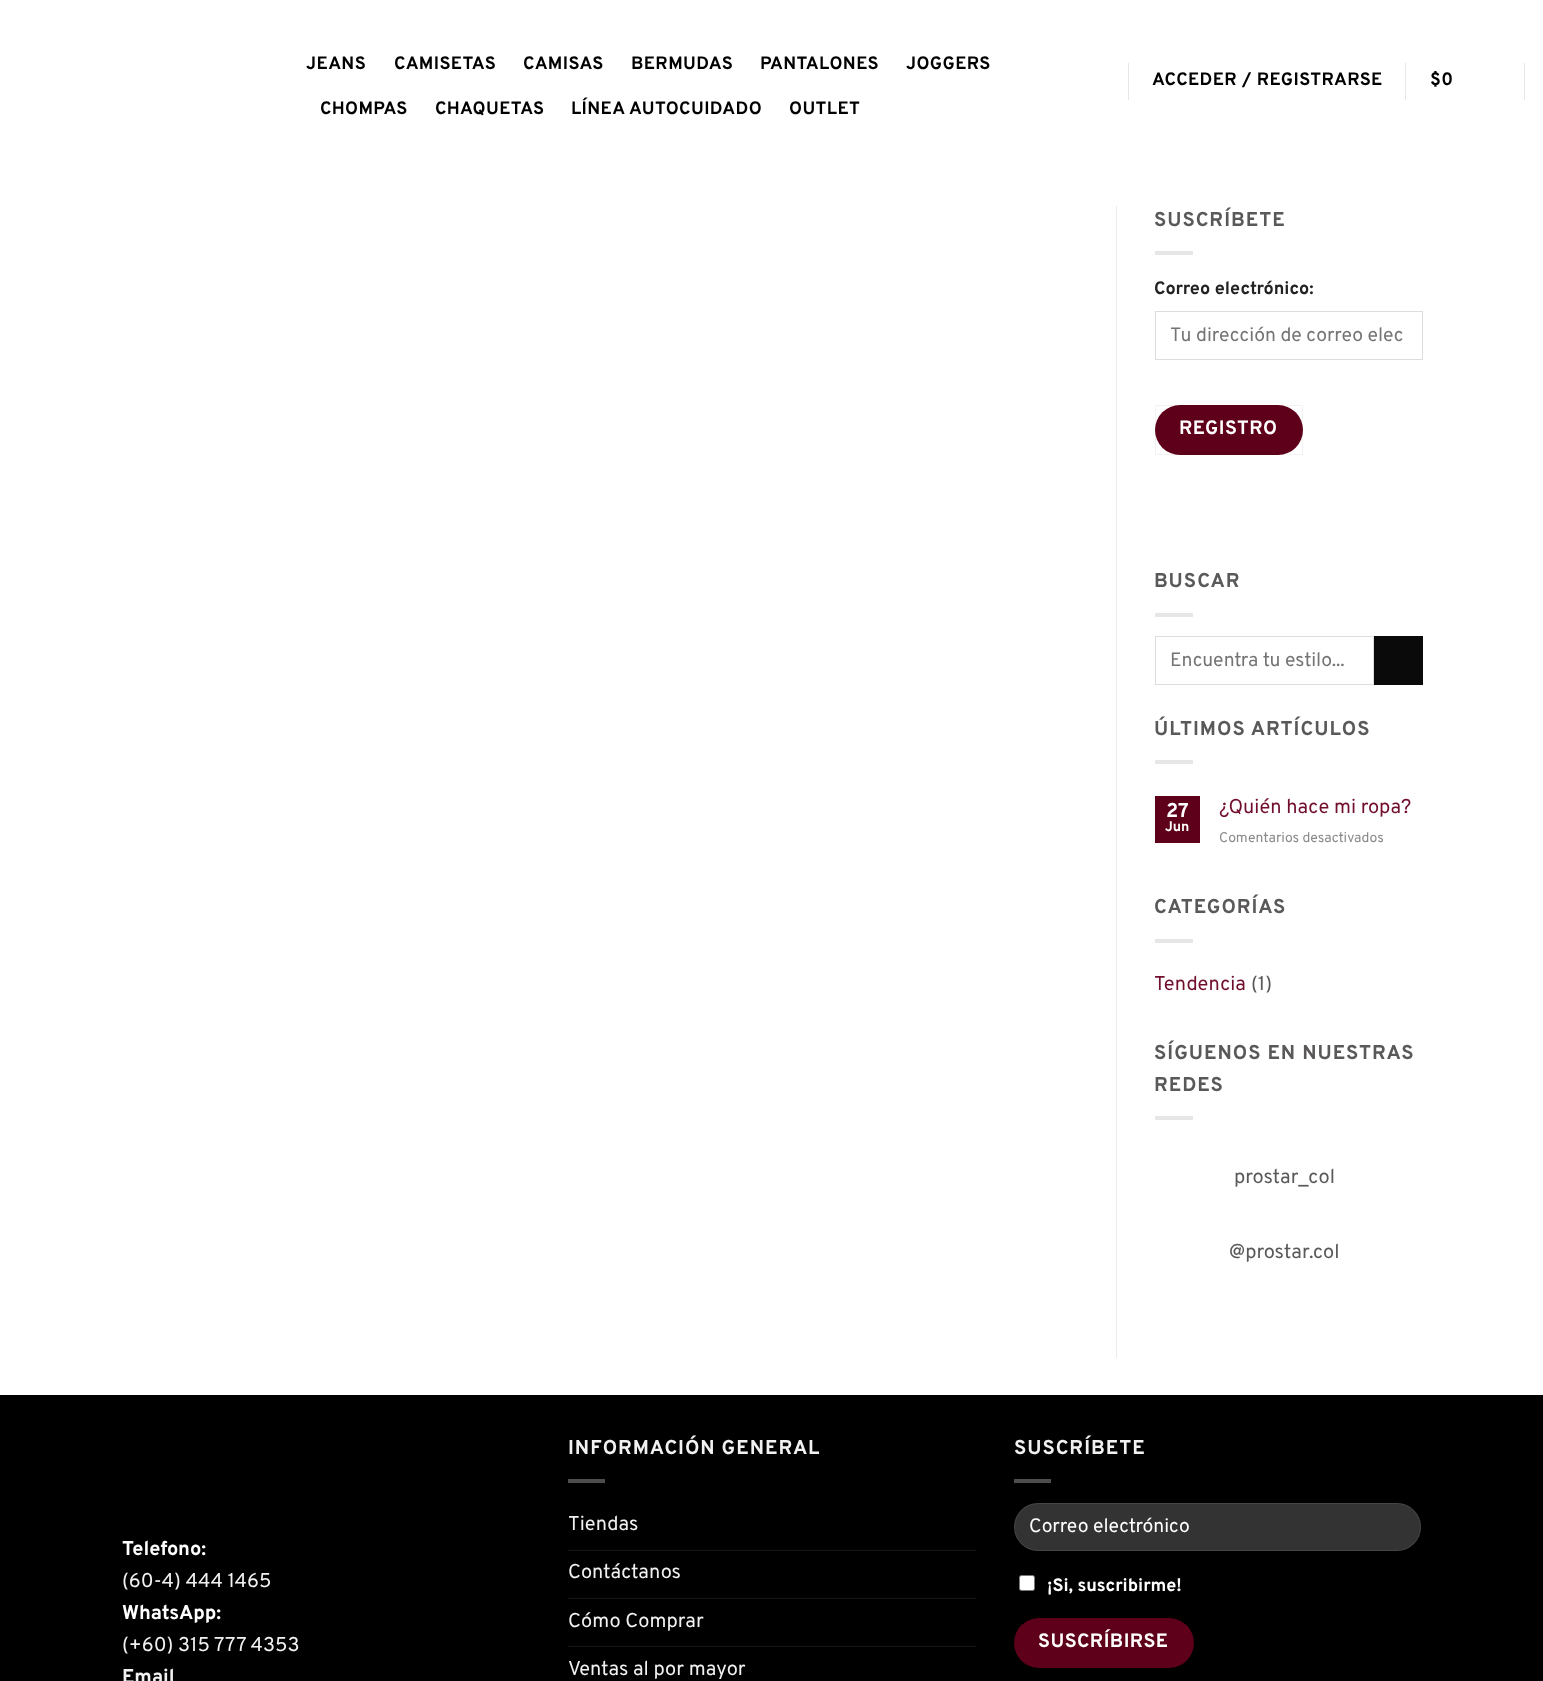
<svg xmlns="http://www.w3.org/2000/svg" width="1543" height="1681">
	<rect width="100%" height="100%" fill="#FFFFFF" />
	<g font-family="Overpass" font-size="18" font-weight="700" letter-spacing="0.4" fill="#000000">
		<text x="306" y="69">JEANS</text>
		<text x="394" y="69">CAMISETAS</text>
		<text x="523" y="69">CAMISAS</text>
		<text x="631" y="69">BERMUDAS</text>
		<text x="760" y="69">PANTALONES</text>
		<text x="906" y="69">JOGGERS</text>
		<text x="320" y="114">CHOMPAS</text>
		<text x="435" y="114">CHAQUETAS</text>
		<text x="571" y="114">LÍNEA AUTOCUIDADO</text>
		<text x="789" y="114">OUTLET</text>
	</g>
	<rect x="1128" y="63" width="1" height="37" fill="#E6E6E6" />
	<text x="1152" y="85" font-family="Overpass" font-size="18" font-weight="700" letter-spacing="0.4" fill="#000000">ACCEDER / REGISTRARSE</text>
	<rect x="1405" y="63" width="1" height="37" fill="#E6E6E6" />
	<text x="1430" y="85" font-family="Overpass" font-size="18" font-weight="700" letter-spacing="0.4" fill="#000000">$0</text>
	<rect x="1524" y="63" width="1" height="37" fill="#E6E6E6" />
	<rect x="1116" y="206" width="1" height="1152" fill="#ECECEC" />
	<text x="1154" y="226" font-family="Overpass" font-size="20" font-weight="700" letter-spacing="1" fill="#5A5858">SUSCRÍBETE</text>
	<rect x="1155" y="251" width="38" height="4" fill="#E6E6E6" />
	<text x="1154" y="294" font-family="Overpass" font-size="18" font-weight="700" fill="#222222">Correo electrónico:</text>
	<rect x="1155.5" y="311.5" width="267" height="48" fill="none" stroke="#DDDDDD" />
	<text x="1170" y="341" font-family="Overpass" font-size="19.4" fill="#757575">Tu dirección de correo elec</text>
	<rect x="1155" y="405" width="148" height="50" rx="25" fill="#5E0019" />
	<rect x="1155.5" y="405.5" width="147" height="49" fill="none" stroke="#000000" stroke-opacity="0.05" />
	<text x="1179" y="434" font-family="Overpass" font-size="19.4" font-weight="700" letter-spacing="0.5" fill="#FFFFFF">REGISTRO</text>
	<text x="1154" y="587" font-family="Overpass" font-size="20" font-weight="700" letter-spacing="1" fill="#5A5858">BUSCAR</text>
	<rect x="1155" y="613" width="38" height="4" fill="#E6E6E6" />
	<rect x="1155.5" y="636.5" width="218" height="48" fill="none" stroke="#DDDDDD" />
	<text x="1170" y="666" font-family="Overpass" font-size="19.4" fill="#757575">Encuentra tu estilo...</text>
	<rect x="1374" y="636" width="49" height="49" fill="#0A0A0A" />
	<text x="1154" y="735" font-family="Overpass" font-size="20" font-weight="700" letter-spacing="1" fill="#5A5858">ÚLTIMOS ARTÍCULOS</text>
	<rect x="1155" y="760" width="38" height="4" fill="#E6E6E6" />
	<rect x="1155" y="796" width="45" height="47" fill="#5E0019" />
	<text x="1166" y="817" font-family="Overpass" font-size="20" font-weight="700" fill="#FFFFFF">27</text>
	<text x="1165" y="831" font-family="Overpass" font-size="14" font-weight="700" fill="#FFFFFF">Jun</text>
	<text x="1219" y="813" font-family="Overpass" font-size="20" fill="#710E2B">¿Quién hace mi ropa?</text>
	<text x="1219" y="842" font-family="Overpass" font-size="14" fill="#8C8A8A">Comentarios desactivados</text>
	<text x="1154" y="913" font-family="Overpass" font-size="20" font-weight="700" letter-spacing="1" fill="#5A5858">CATEGORÍAS</text>
	<rect x="1155" y="939" width="38" height="4" fill="#E6E6E6" />
	<text x="1154" y="990" font-family="Overpass" font-size="20" fill="#710E2B">Tendencia</text>
	<text x="1251" y="990" font-family="Overpass" font-size="20" fill="#5A5858">(1)</text>
	<g font-family="Overpass" font-size="20" font-weight="700" letter-spacing="1" fill="#5A5858">
		<text x="1154" y="1059">SÍGUENOS EN NUESTRAS</text>
		<text x="1154" y="1091">REDES</text>
	</g>
	<rect x="1155" y="1116" width="38" height="4" fill="#E6E6E6" />
	<g font-family="Overpass" font-size="20" fill="#5A5858">
		<text x="1234" y="1183">prostar_col</text>
		<text x="1229" y="1258">@prostar.col</text>
	</g>
	<rect x="0" y="1395" width="1543" height="286" fill="#000000" />
	<text x="122" y="1555" font-family="Overpass" font-size="20" font-weight="700" fill="#FFFFFF">Telefono:</text>
	<text x="122" y="1587" font-family="Overpass" font-size="20" fill="#F1F1F1">(60-4) 444 1465</text>
	<text x="122" y="1619" font-family="Overpass" font-size="20" font-weight="700" fill="#FFFFFF">WhatsApp:</text>
	<text x="122" y="1651" font-family="Overpass" font-size="20" fill="#F1F1F1">(+60) 315 777 4353</text>
	<text x="122" y="1683" font-family="Overpass" font-size="20" font-weight="700" fill="#F1F1F1">Email</text>
	<text x="568" y="1454" font-family="Overpass" font-size="20" font-weight="700" letter-spacing="1" fill="#F1F1F1">INFORMACIÓN GENERAL</text>
	<rect x="568" y="1479" width="37" height="4" fill="#4D4D4D" />
	<text x="568" y="1530" font-family="Overpass" font-size="20" fill="#F1F1F1">Tiendas</text>
	<rect x="568" y="1550" width="408" height="1" fill="#141414" />
	<text x="568" y="1578" font-family="Overpass" font-size="20" fill="#F1F1F1">Contáctanos</text>
	<rect x="568" y="1598" width="408" height="1" fill="#141414" />
	<text x="568" y="1627" font-family="Overpass" font-size="20" fill="#F1F1F1">Cómo Comprar</text>
	<rect x="568" y="1646" width="408" height="1" fill="#141414" />
	<text x="568" y="1675" font-family="Overpass" font-size="20" fill="#F1F1F1">Ventas al por mayor</text>
	<text x="1014" y="1454" font-family="Overpass" font-size="20" font-weight="700" letter-spacing="1" fill="#F1F1F1">SUSCRÍBETE</text>
	<rect x="1014" y="1479" width="37" height="4" fill="#4D4D4D" />
	<rect x="1014" y="1503" width="407" height="48" rx="24" fill="#333333" />
	<rect x="1014.5" y="1503.5" width="406" height="47" rx="23.5" fill="none" stroke="#FFFFFF" stroke-opacity="0.09" />
	<text x="1029" y="1532" font-family="Overpass" font-size="19.4" fill="#FFFFFF">Correo electrónico</text>
	<rect x="1019.5" y="1575.5" width="15" height="15" rx="2" fill="#FFFFFF" stroke="#767676" />
	<text x="1047" y="1591" font-family="Overpass" font-size="18" font-weight="700" fill="#FFFFFF">¡Si, suscribirme!</text>
	<rect x="1014" y="1618" width="180" height="50" rx="25" fill="#5E0019" />
	<rect x="1014.5" y="1618.5" width="179" height="49" fill="none" stroke="#000000" stroke-opacity="0.05" />
	<text x="1038" y="1647" font-family="Overpass" font-size="19.4" font-weight="700" letter-spacing="0.5" fill="#FFFFFF">SUSCRÍBIRSE</text>
</svg>
